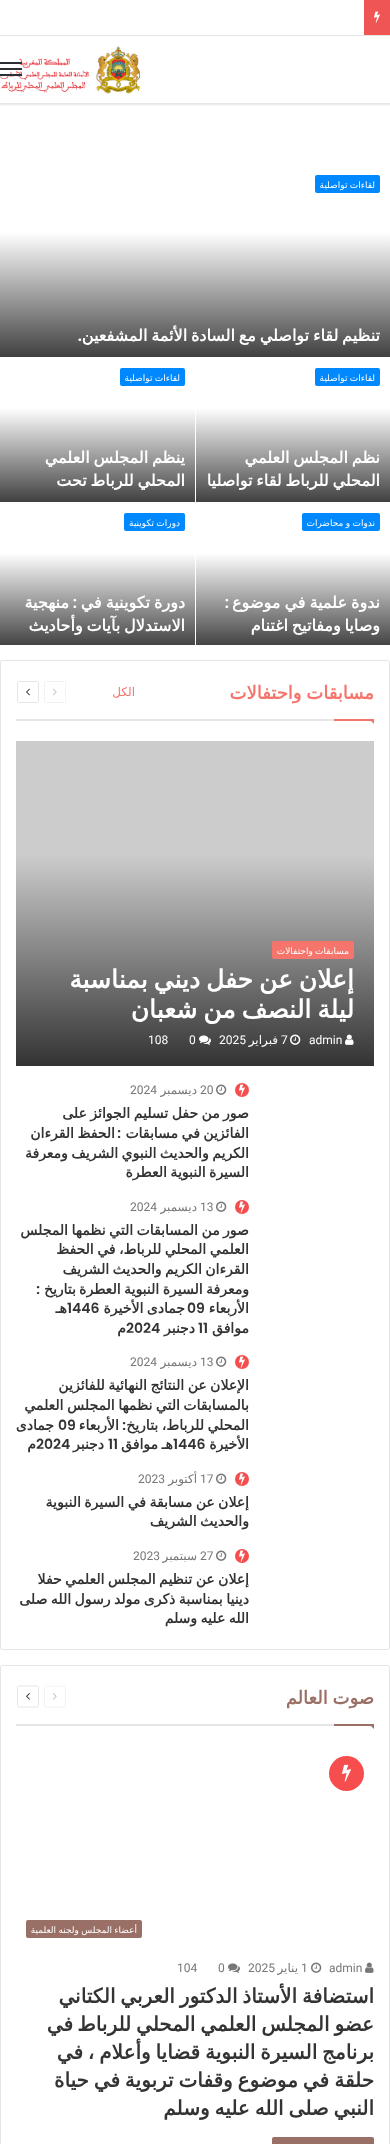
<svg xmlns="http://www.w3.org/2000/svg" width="390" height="2144">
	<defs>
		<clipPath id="clip1"><rect x="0" y="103" width="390" height="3" /></clipPath>
		<linearGradient id="g1" gradientUnits="userSpaceOnUse" x1="195" y1="232" x2="195" y2="357"><stop offset="0" stop-color="#FFFFFF" /><stop offset="1" stop-color="#404040" /></linearGradient>
		<clipPath id="clip2"><rect x="10" y="325" width="370" height="22" /></clipPath>
		<linearGradient id="g2" gradientUnits="userSpaceOnUse" x1="293" y1="408" x2="293" y2="502"><stop offset="0" stop-color="#FFFFFF" /><stop offset="1" stop-color="#404040" /></linearGradient>
		<clipPath id="clip3"><rect x="206" y="447" width="174" height="45" /></clipPath>
		<linearGradient id="g3" gradientUnits="userSpaceOnUse" x1="98" y1="408" x2="98" y2="502"><stop offset="0" stop-color="#FFFFFF" /><stop offset="1" stop-color="#404040" /></linearGradient>
		<clipPath id="clip4"><rect x="10" y="447" width="175" height="45" /></clipPath>
		<linearGradient id="g4" gradientUnits="userSpaceOnUse" x1="293" y1="553" x2="293" y2="647"><stop offset="0" stop-color="#FFFFFF" /><stop offset="1" stop-color="#404040" /></linearGradient>
		<clipPath id="clip5"><rect x="206" y="592" width="174" height="45" /></clipPath>
		<linearGradient id="g5" gradientUnits="userSpaceOnUse" x1="98" y1="553" x2="98" y2="647"><stop offset="0" stop-color="#FFFFFF" /><stop offset="1" stop-color="#404040" /></linearGradient>
		<clipPath id="clip6"><rect x="10" y="592" width="175" height="45" /></clipPath>
		<linearGradient id="g6" gradientUnits="userSpaceOnUse" x1="195" y1="855" x2="195" y2="1066"><stop offset="0" stop-color="#CCCCCC" /><stop offset="1" stop-color="#333333" /></linearGradient>
	</defs>
	<rect width="100%" height="100%" fill="#FFFFFF" />
	<rect x="0" y="35" width="390" height="1" fill="#E6E6E6" />
	<rect x="364" y="0" width="26" height="35" fill="#F05555" />
	<image x="374" y="11" width="6" height="12" href="assets/img1.png" />
	<g clip-path="url(#clip1)">
		<rect x="-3" y="42" width="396" height="63" fill="#000000" fill-opacity="0.1" filter="blur(1px)" />
	</g>
	<image x="0" y="46" width="140" height="48" href="assets/img2.png" />
	<rect x="0" y="68" width="22" height="2" fill="#2C2F34" />
	<rect x="0" y="62" width="22" height="2" fill="#2C2F34" />
	<rect x="0" y="74" width="22" height="2" fill="#2C2F34" />
	<rect x="315" y="175" width="65" height="18" rx="2" fill="#0088FF" />
	<text x="375" y="188" word-spacing="-0.5" font-family="DejaVu Sans" font-size="9" direction="rtl" fill="#FFFFFF">لقاءات تواصلية</text>
	<rect x="0" y="234" width="390" height="123" fill="url(#g1)" />
	<g clip-path="url(#clip2)">
		<text x="380" y="341" word-spacing="-1.25" font-family="DejaVu Sans" font-size="16" font-weight="700" direction="rtl" fill="#FFFFFF">تنظيم لقاء تواصلي مع السادة الأئمة المشفعين</text>
	</g>
	<text x="82" y="341" font-family="Poppins" font-size="16" font-weight="600" direction="rtl" fill="#FFFFFF">.</text>
	<rect x="315" y="368" width="65" height="18" rx="2" fill="#0088FF" />
	<text x="375" y="381" word-spacing="-0.5" font-family="DejaVu Sans" font-size="9" direction="rtl" fill="#FFFFFF">لقاءات تواصلية</text>
	<rect x="196" y="409" width="194" height="93" fill="url(#g2)" />
	<g clip-path="url(#clip3)">
		<g font-family="DejaVu Sans" font-size="16" font-weight="700" direction="rtl" fill="#FFFFFF">
			<text x="380" y="463" word-spacing="-1.25">نظم المجلس العلمي</text>
			<text x="380" y="486" word-spacing="-1.25">المحلي للرباط لقاء تواصليا</text>
		</g>
	</g>
	<rect x="120" y="368" width="65" height="18" rx="2" fill="#0088FF" />
	<text x="180" y="381" word-spacing="-0.5" font-family="DejaVu Sans" font-size="9" direction="rtl" fill="#FFFFFF">لقاءات تواصلية</text>
	<rect x="0" y="409" width="195" height="93" fill="url(#g3)" />
	<g clip-path="url(#clip4)">
		<g font-family="DejaVu Sans" font-size="16" font-weight="700" direction="rtl" fill="#FFFFFF">
			<text x="185" y="463" word-spacing="-1.25">ينظم المجلس العلمي</text>
			<text x="185" y="486" word-spacing="-1.25">المحلي للرباط تحت</text>
		</g>
	</g>
	<rect x="302" y="513" width="78" height="18" rx="2" fill="#0088FF" />
	<text x="375" y="526" word-spacing="-0.5" font-family="DejaVu Sans" font-size="9" direction="rtl" fill="#FFFFFF">ندوات و محاضرات</text>
	<rect x="196" y="554" width="194" height="91" fill="url(#g4)" />
	<g clip-path="url(#clip5)">
		<text x="380" y="608" word-spacing="-1" font-family="DejaVu Sans" font-size="16" font-weight="700" direction="rtl" fill="#FFFFFF">ندوة علمية في موضوع</text>
	</g>
	<text x="229" y="608" font-family="Poppins" font-size="16" font-weight="600" direction="rtl" fill="#FFFFFF">:</text>
	<g clip-path="url(#clip5)">
		<text x="380" y="631" word-spacing="-1.25" font-family="DejaVu Sans" font-size="16" font-weight="700" direction="rtl" fill="#FFFFFF">وصايا ومفاتيح اغتنام</text>
	</g>
	<rect x="124" y="513" width="61" height="18" rx="2" fill="#0088FF" />
	<text x="180" y="526" word-spacing="-0.5" font-family="DejaVu Sans" font-size="9" direction="rtl" fill="#FFFFFF">دورات تكوينية</text>
	<rect x="0" y="554" width="195" height="91" fill="url(#g5)" />
	<g clip-path="url(#clip6)">
		<text x="185" y="608" word-spacing="-1" font-family="DejaVu Sans" font-size="16" font-weight="700" direction="rtl" fill="#FFFFFF">دورة تكوينية في</text>
	</g>
	<text x="77" y="608" font-family="Poppins" font-size="16" font-weight="600" direction="rtl" fill="#FFFFFF">:</text>
	<text x="69" y="608" font-family="DejaVu Sans" font-size="16" font-weight="700" direction="rtl" fill="#FFFFFF">منهجية</text>
	<g clip-path="url(#clip6)">
		<text x="185" y="631" word-spacing="-1.25" font-family="DejaVu Sans" font-size="16" font-weight="700" direction="rtl" fill="#FFFFFF">الاستدلال بآيات وأحاديث</text>
	</g>
	<rect x="0.5" y="660.5" width="389" height="989" rx="1.5" fill="none" stroke="#E6E6E6" />
	<rect x="16" y="719" width="318" height="2" fill="#E6E6E6" />
	<text x="374" y="699" word-spacing="-1" font-family="DejaVu Sans" font-size="18" font-weight="700" direction="rtl" fill="#F5756C">مسابقات واحتفالات</text>
	<text x="135" y="696" font-family="DejaVu Sans" font-size="12" direction="rtl" fill="#F5756C">الكل</text>
	<path d="M64 702.5H46C45 702.5 44.5 702 44.5 701V683C44.5 682 45 681.5 46 681.5H64C65 681.5 65.5 682 65.5 683V701C65.5 702 65 702.5 64 702.5Z" fill="none" stroke="#F2F2F2" />
	<image x="53" y="688" width="4" height="8" href="assets/img3.png" />
	<path d="M37 702.5H19C18 702.5 17.5 702 17.5 701V683C17.5 682 18 681.5 19 681.5H37C38 681.5 38.5 682 38.5 683V701C38.5 702 38 702.5 37 702.5Z" fill="none" stroke="#E6E6E6" />
	<image x="26" y="688" width="4" height="8" href="assets/img4.png" />
	<path d="M369 719H374V724Z" fill="#F5756C" />
	<rect x="334" y="719" width="40" height="2" fill="#F5756C" />
	<rect x="16" y="741" width="358" height="114" fill="#CCCCCC" />
	<rect x="16" y="855" width="358" height="211" fill="url(#g6)" />
	<rect x="272" y="941" width="82" height="18" rx="2" fill="#F5756C" />
	<text x="349" y="954" word-spacing="-0.5" font-family="DejaVu Sans" font-size="9" direction="rtl" fill="#FFFFFF">مسابقات واحتفالات</text>
	<g font-family="DejaVu Sans" font-size="25" font-weight="700" direction="rtl" fill="#FFFFFF">
		<text x="354" y="988" word-spacing="-2">إعلان عن حفل ديني بمناسبة</text>
		<text x="354" y="1018" word-spacing="-2">ليلة النصف من شعبان</text>
	</g>
	<image x="345" y="1034" width="9" height="11" href="assets/img5.png" />
	<text x="309" y="1044" font-family="Roboto" font-size="12" fill="#FFFFFF">admin</text>
	<image x="290" y="1034" width="11" height="11" href="assets/img6.png" />
	<text x="281" y="1044" font-family="Roboto" font-size="12" fill="#FFFFFF">7</text>
	<text x="278" y="1044" font-family="DejaVu Sans" font-size="12" direction="rtl" fill="#FFFFFF">فبراير</text>
	<text x="219" y="1044" font-family="Roboto" font-size="12" fill="#FFFFFF">2025</text>
	<image x="199" y="1035" width="12" height="10" href="assets/img7.png" />
	<g font-family="Roboto" font-size="12" fill="#FFFFFF">
		<text x="189" y="1044">0</text>
		<text x="148" y="1044">108</text>
	</g>
	<circle cx="242" cy="1090" r="7" fill="#F64E4E" />
	<image x="239" y="1084" width="6" height="12" href="assets/img8.png" />
	<image x="216" y="1084" width="11" height="11" href="assets/img9.png" />
	<text x="200" y="1094" font-family="Roboto" font-size="12" fill="#777777">20</text>
	<text x="197" y="1094" font-family="DejaVu Sans" font-size="12" direction="rtl" fill="#777777">ديسمبر</text>
	<text x="130" y="1094" font-family="Roboto" font-size="12" fill="#777777">2024</text>
	<g font-family="DejaVu Sans" font-size="14" font-weight="700" direction="rtl" fill="#333333">
		<text x="249" y="1118" word-spacing="-1">صور من حفل تسليم الجوائز على</text>
		<text x="249" y="1138" word-spacing="-1">الفائزين في مسابقات</text>
	</g>
	<text x="121" y="1138" font-family="Poppins" font-size="14" font-weight="600" direction="rtl" fill="#333333">:</text>
	<g font-family="DejaVu Sans" font-size="14" font-weight="700" direction="rtl" fill="#333333">
		<text x="115" y="1138" word-spacing="-1">الحفظ القرءان</text>
		<text x="249" y="1158" word-spacing="-1">الكريم والحديث النبوي الشريف ومعرفة</text>
		<text x="249" y="1177" word-spacing="-1">السيرة النبوية العطرة</text>
	</g>
	<circle cx="242" cy="1207" r="7" fill="#F64E4E" />
	<image x="239" y="1201" width="6" height="12" href="assets/img8.png" />
	<image x="216" y="1201" width="11" height="11" href="assets/img9.png" />
	<text x="200" y="1211" font-family="Roboto" font-size="12" fill="#777777">13</text>
	<text x="197" y="1211" font-family="DejaVu Sans" font-size="12" direction="rtl" fill="#777777">ديسمبر</text>
	<text x="130" y="1211" font-family="Roboto" font-size="12" fill="#777777">2024</text>
	<g font-family="DejaVu Sans" font-size="14" font-weight="700" direction="rtl" fill="#333333">
		<text x="249" y="1235" word-spacing="-1">صور من</text>
		<text x="198" y="1235" word-spacing="-1">المسابقات التي نظمها المجلس</text>
		<text x="249" y="1254" word-spacing="-1">العلمي المحلي للرباط، في الحفظ</text>
		<text x="249" y="1274" word-spacing="-1">القرءان الكريم والحديث الشريف</text>
		<text x="249" y="1294" word-spacing="-1">ومعرفة السيرة النبوية العطرة</text>
		<text x="76" y="1294">بتاريخ</text>
	</g>
	<text x="40" y="1294" font-family="Poppins" font-size="14" font-weight="600" direction="rtl" fill="#333333">:</text>
	<text x="249" y="1313" font-family="DejaVu Sans" font-size="14" font-weight="700" direction="rtl" fill="#333333">الأربعاء</text>
	<text x="187" y="1313" font-family="Poppins" font-size="14" font-weight="600" fill="#333333">09</text>
	<text x="185" y="1313" word-spacing="-1" font-family="DejaVu Sans" font-size="14" font-weight="700" direction="rtl" fill="#333333">جمادى الأخيرة</text>
	<text x="67" y="1313" font-family="Poppins" font-size="14" font-weight="600" fill="#333333">1446</text>
	<g font-family="DejaVu Sans" font-size="14" font-weight="700" direction="rtl" fill="#333333">
		<text x="67" y="1313">هـ</text>
		<text x="249" y="1333">موافق</text>
	</g>
	<text x="198" y="1333" font-family="Poppins" font-size="14" font-weight="600" fill="#333333">11</text>
	<text x="195" y="1333" font-family="DejaVu Sans" font-size="14" font-weight="700" direction="rtl" fill="#333333">دجنبر</text>
	<text x="126" y="1333" font-family="Poppins" font-size="14" font-weight="600" fill="#333333">2024</text>
	<text x="126" y="1333" font-family="DejaVu Sans" font-size="14" font-weight="700" direction="rtl" fill="#333333">م</text>
	<circle cx="242" cy="1362" r="7" fill="#F64E4E" />
	<image x="239" y="1356" width="6" height="12" href="assets/img8.png" />
	<image x="216" y="1356" width="11" height="11" href="assets/img9.png" />
	<text x="200" y="1366" font-family="Roboto" font-size="12" fill="#777777">13</text>
	<text x="197" y="1366" font-family="DejaVu Sans" font-size="12" direction="rtl" fill="#777777">ديسمبر</text>
	<text x="130" y="1366" font-family="Roboto" font-size="12" fill="#777777">2024</text>
	<g font-family="DejaVu Sans" font-size="14" font-weight="700" direction="rtl" fill="#333333">
		<text x="249" y="1390" word-spacing="-1">الإعلان عن النتائج النهائية للفائزين</text>
		<text x="249" y="1410" word-spacing="-1">بالمسابقات التي نظمها المجلس العلمي</text>
		<text x="249" y="1430" word-spacing="-1">المحلي للرباط، بتاريخ</text>
	</g>
	<text x="126" y="1430" font-family="Poppins" font-size="14" font-weight="600" direction="rtl" fill="#333333">:</text>
	<text x="119" y="1430" font-family="DejaVu Sans" font-size="14" font-weight="700" direction="rtl" fill="#333333">الأربعاء</text>
	<text x="58" y="1430" font-family="Poppins" font-size="14" font-weight="600" fill="#333333">09</text>
	<g font-family="DejaVu Sans" font-size="14" font-weight="700" direction="rtl" fill="#333333">
		<text x="54" y="1430">جمادى</text>
		<text x="249" y="1449">الأخيرة</text>
		<text x="173" y="1449" word-spacing="-1">هـ موافق</text>
	</g>
	<g font-family="Poppins" font-size="14" font-weight="600" fill="#333333">
		<text x="173" y="1449">1446</text>
		<text x="108" y="1449">11</text>
	</g>
	<text x="104" y="1449" font-family="DejaVu Sans" font-size="14" font-weight="700" direction="rtl" fill="#333333">دجنبر</text>
	<text x="36" y="1449" font-family="Poppins" font-size="14" font-weight="600" fill="#333333">2024</text>
	<text x="36" y="1449" font-family="DejaVu Sans" font-size="14" font-weight="700" direction="rtl" fill="#333333">م</text>
	<circle cx="242" cy="1479" r="7" fill="#F64E4E" />
	<image x="239" y="1473" width="6" height="12" href="assets/img8.png" />
	<image x="216" y="1473" width="11" height="11" href="assets/img9.png" />
	<text x="200" y="1483" font-family="Roboto" font-size="12" fill="#777777">17</text>
	<text x="197" y="1483" font-family="DejaVu Sans" font-size="12" direction="rtl" fill="#777777">أكتوبر</text>
	<text x="138" y="1483" font-family="Roboto" font-size="12" fill="#777777">2023</text>
	<g font-family="DejaVu Sans" font-size="14" font-weight="700" direction="rtl" fill="#333333">
		<text x="249" y="1507" word-spacing="-1">إعلان عن مسابقة في السيرة النبوية</text>
		<text x="249" y="1526" word-spacing="-1">والحديث الشريف</text>
	</g>
	<circle cx="242" cy="1556" r="7" fill="#F64E4E" />
	<image x="239" y="1550" width="6" height="12" href="assets/img8.png" />
	<image x="216" y="1550" width="11" height="11" href="assets/img9.png" />
	<text x="200" y="1560" font-family="Roboto" font-size="12" fill="#777777">27</text>
	<text x="197" y="1560" font-family="DejaVu Sans" font-size="12" direction="rtl" fill="#777777">سبتمبر</text>
	<text x="133" y="1560" font-family="Roboto" font-size="12" fill="#777777">2023</text>
	<g font-family="DejaVu Sans" font-size="14" font-weight="700" direction="rtl" fill="#333333">
		<text x="249" y="1584" word-spacing="-1">إعلان عن تنظيم المجلس العلمي حفلا</text>
		<text x="249" y="1604" word-spacing="-1">دينيا بمناسبة ذكرى مولد رسول الله صلى</text>
		<text x="249" y="1623" word-spacing="-1">الله عليه وسلم</text>
	</g>
	<rect x="0.5" y="1665.5" width="389" height="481" rx="1.5" fill="none" stroke="#E6E6E6" />
	<rect x="16" y="1724" width="318" height="2" fill="#E6E6E6" />
	<text x="374" y="1704" word-spacing="-1" font-family="DejaVu Sans" font-size="18" font-weight="700" direction="rtl" fill="#9A6F65">صوت العالم</text>
	<path d="M64 1707H46C45 1707 44.5 1706.5 44.5 1705.5V1687.5C44.5 1687 45 1686 46 1686H64C65 1686 65.5 1687 65.5 1687.5V1705.5C65.5 1706.5 65 1707 64 1707Z" fill="none" stroke="#F2F2F2" />
	<image x="52" y="1693" width="5" height="7" href="assets/img10.png" />
	<path d="M37 1707H19C18 1707 17.5 1706.5 17.5 1705.5V1687.5C17.5 1687 18 1686 19 1686H37C38 1686 38.5 1687 38.5 1687.5V1705.5C38.5 1706.5 38 1707 37 1707Z" fill="none" stroke="#E6E6E6" />
	<image x="26" y="1693" width="4" height="7" href="assets/img11.png" />
	<path d="M369 1724H374V1729Z" fill="#9A6F65" />
	<rect x="334" y="1724" width="40" height="2" fill="#9A6F65" />
	<circle cx="346.5" cy="1773.5" r="17.5" fill="#F64E4E" />
	<image x="342" y="1764" width="9" height="18" href="assets/img12.png" />
	<rect x="26" y="1920" width="116" height="18" rx="2" fill="#9A6F65" />
	<text x="137" y="1933" word-spacing="-0.5" font-family="DejaVu Sans" font-size="9" direction="rtl" fill="#FFFFFF">أعضاء المجلس ولجنه العلمية</text>
	<image x="365" y="1962" width="9" height="11" href="assets/img13.png" />
	<text x="329" y="1972" font-family="Roboto" font-size="12" fill="#777777">admin</text>
	<image x="311" y="1962" width="11" height="11" href="assets/img9.png" />
	<text x="301" y="1972" font-family="Roboto" font-size="12" fill="#777777">1</text>
	<text x="298" y="1972" font-family="DejaVu Sans" font-size="12" direction="rtl" fill="#777777">يناير</text>
	<text x="248" y="1972" font-family="Roboto" font-size="12" fill="#777777">2025</text>
	<image x="228" y="1963" width="12" height="10" href="assets/img14.png" />
	<g font-family="Roboto" font-size="12" fill="#777777">
		<text x="218" y="1972">0</text>
		<text x="177" y="1972">104</text>
	</g>
	<g font-family="DejaVu Sans" font-size="20" font-weight="700" direction="rtl" fill="#333333">
		<text x="374" y="2003" word-spacing="-1.5">استضافة الأستاذ الدكتور العربي الكتاني</text>
		<text x="374" y="2031" word-spacing="-1.5">عضو المجلس العلمي المحلي للرباط</text>
		<text x="73" y="2031">في</text>
		<text x="374" y="2059" word-spacing="-1.5">برنامج السيرة النبوية قضايا وأعلام ، في</text>
		<text x="374" y="2087">حلقة</text>
		<text x="329" y="2087" word-spacing="-1.5">في موضوع وقفات تربوية في حياة</text>
		<text x="374" y="2115" word-spacing="-1.5">النبي صلى الله عليه وسلم</text>
	</g>
	<rect x="272" y="2137" width="102" height="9" rx="2" fill="#9A6F65" />
</svg>
